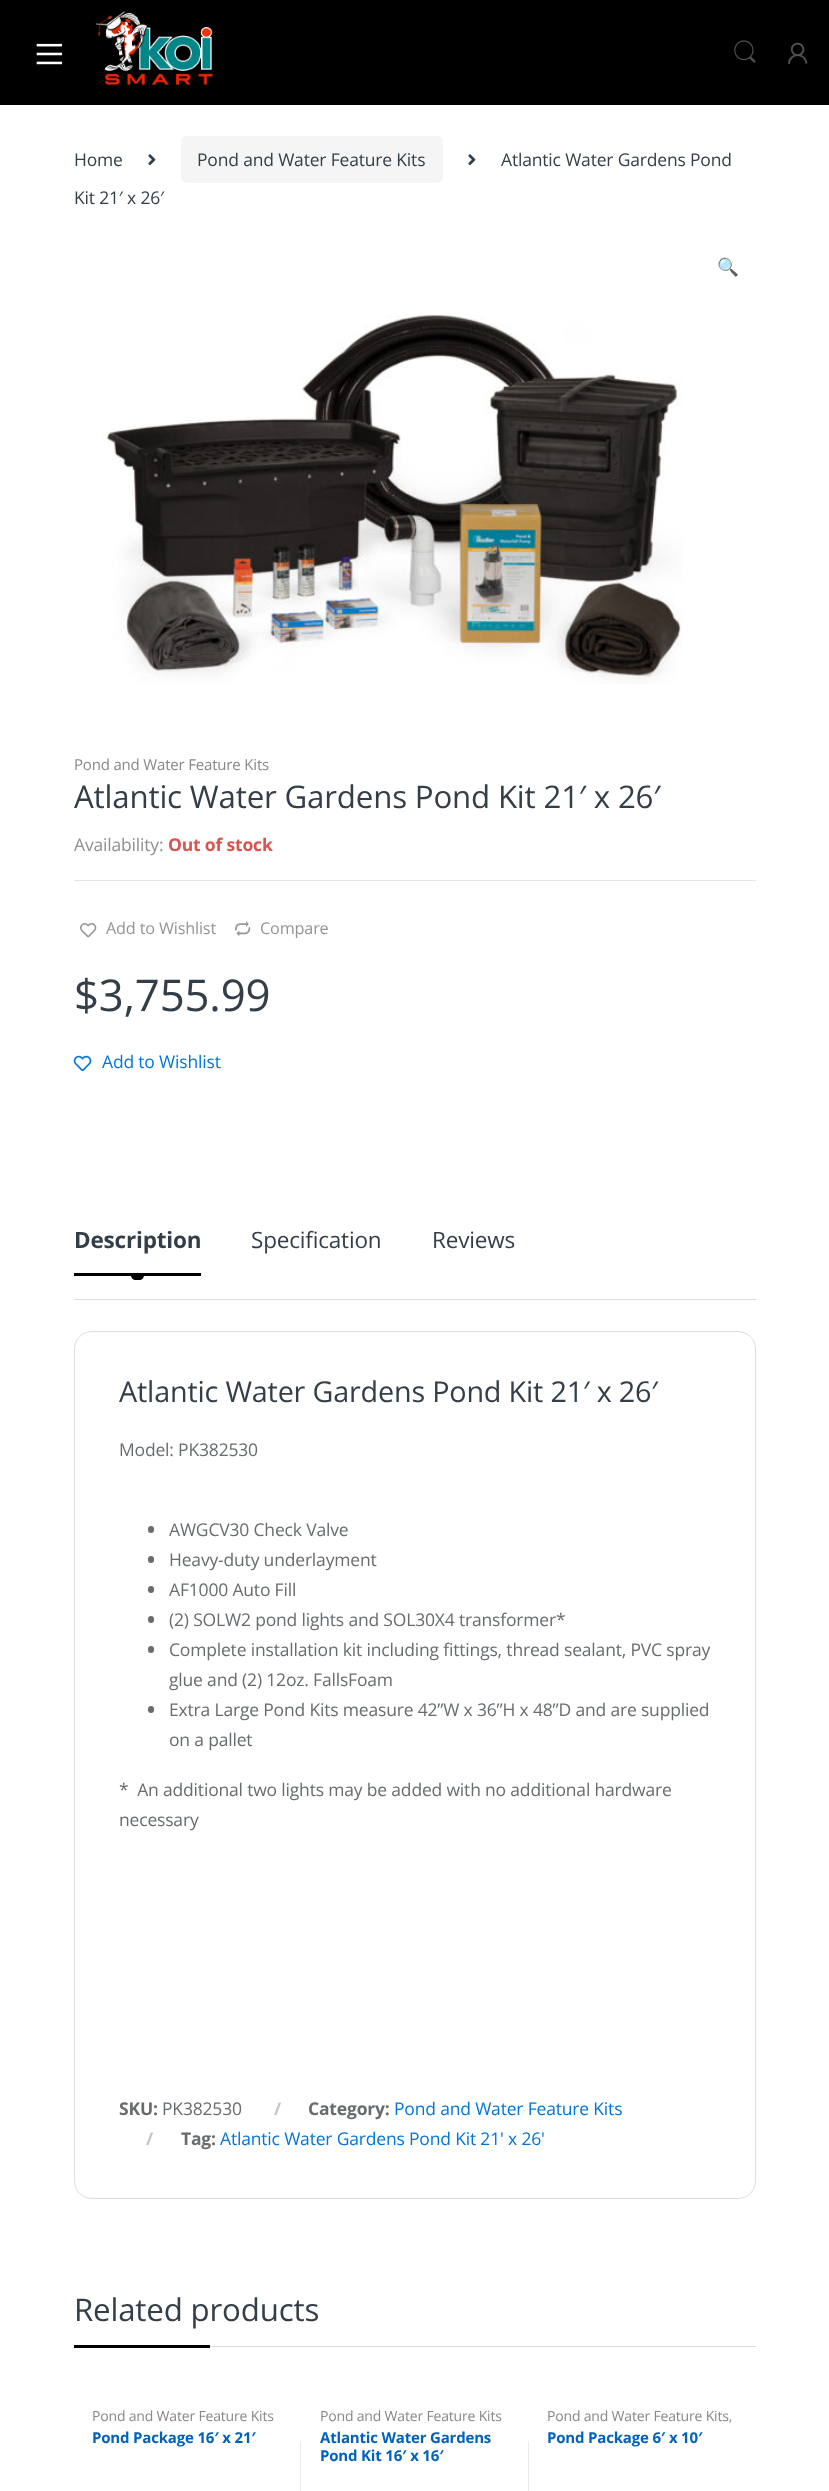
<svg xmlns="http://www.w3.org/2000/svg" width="829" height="2491">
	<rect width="100%" height="100%" fill="#FFFFFF" />
	<rect x="0" y="0" width="829" height="105" fill="#000000" />
	<image x="36" y="43" width="27" height="22" href="assets/img1.png" />
	<image x="95" y="11" width="118" height="74" href="assets/img2.png" />
	<image x="734" y="40" width="22" height="23" href="assets/img3.png" />
	<image x="788" y="42" width="20" height="22" href="assets/img4.png" />
	<text x="74" y="166" font-family="Open Sans" font-size="17.5" letter-spacing="-0.18" fill="#333E48">Home</text>
	<image x="148" y="154" width="8" height="12" href="assets/img5.png" />
	<rect x="181" y="136" width="262" height="47" rx="6" fill="#F5F5F5" />
	<text x="197" y="166" font-family="Open Sans" font-size="17.5" letter-spacing="-0.18" fill="#333E48">Pond and Water Feature Kits</text>
	<image x="468" y="154" width="8" height="12" href="assets/img5.png" />
	<g font-family="Open Sans" font-size="17.5" letter-spacing="-0.18" fill="#333E48">
		<text x="501" y="166">Atlantic Water Gardens Pond</text>
		<text x="74" y="204">Kit 21′ x 26′</text>
	</g>
	<text x="717" y="273" font-family="Noto Color Emoji" font-size="17.5" letter-spacing="-0.18" fill="#0275D8">🔍</text>
	<image x="101" y="314" width="582" height="370" href="assets/img6.png" />
	<text x="74" y="770" font-family="Open Sans" font-size="15" letter-spacing="-0.18" fill="#878787">Pond and Water Feature Kits</text>
	<text x="74" y="808" font-family="Open Sans" font-size="31.25" letter-spacing="-0.18" fill="#333E48">Atlantic Water Gardens Pond Kit 21′ x 26′</text>
	<text x="74" y="851" font-family="Open Sans" font-size="17.5" letter-spacing="-0.18" fill="#8F8E94">Availability:</text>
	<text x="168" y="851" font-family="Open Sans" font-size="17.5" font-weight="700" letter-spacing="-0.18" fill="#D9534F">Out of stock</text>
	<rect x="74" y="880" width="682" height="1" fill="#E6E6E6" />
	<image x="80" y="923" width="17" height="15" href="assets/img7.png" />
	<text x="106" y="934" font-family="Open Sans" font-size="16.25" letter-spacing="-0.18" fill="#949494">Add to Wishlist</text>
	<image x="235" y="921" width="16" height="15" href="assets/img8.png" />
	<text x="260" y="934" font-family="Open Sans" font-size="16.25" letter-spacing="-0.18" fill="#949494">Compare</text>
	<text x="74" y="1011" font-family="Open Sans" font-size="43.75" letter-spacing="-0.18" fill="#333E48">$3,755.99</text>
	<image x="73" y="1055" width="19" height="17" href="assets/img9.png" />
	<text x="102" y="1068" font-family="Open Sans" font-size="17.5" letter-spacing="-0.18" fill="#0275D8">Add to Wishlist</text>
	<text x="74" y="1248" font-family="Open Sans" font-size="22.5" font-weight="700" letter-spacing="-0.18" fill="#333E48">Description</text>
	<path d="M131 1275H144C144 1278 142 1280 139 1280H136C133 1280 131 1278 131 1275Z" fill="#000000" />
	<rect x="74" y="1273" width="127" height="3" fill="#000000" />
	<g font-family="Open Sans" font-size="22.5" letter-spacing="-0.18" fill="#333E48">
		<text x="251" y="1248">Specification</text>
		<text x="432" y="1248">Reviews</text>
	</g>
	<rect x="74" y="1299" width="682" height="1" fill="#DDDDDD" />
	<rect x="74.5" y="1331.5" width="681" height="867" rx="17.5" fill="none" stroke="#DDDDDD" />
	<text x="119" y="1402" font-family="Open Sans" font-size="28.75" letter-spacing="-0.18" fill="#333E48">Atlantic Water Gardens Pond Kit 21′ x 26′</text>
	<text x="119" y="1456" font-family="Open Sans" font-size="17.5" letter-spacing="-0.18" fill="#686C6F">Model: PK382530</text>
	<rect x="148" y="1526" width="6" height="7" rx="3" fill="#686C6F" />
	<text x="169" y="1536" font-family="Open Sans" font-size="17.5" letter-spacing="-0.18" fill="#686C6F">AWGCV30 Check Valve</text>
	<rect x="148" y="1556" width="6" height="7" rx="3" fill="#686C6F" />
	<text x="169" y="1566" font-family="Open Sans" font-size="17.5" letter-spacing="-0.18" fill="#686C6F">Heavy-duty underlayment</text>
	<rect x="148" y="1586" width="6" height="7" rx="3" fill="#686C6F" />
	<text x="169" y="1596" font-family="Open Sans" font-size="17.5" letter-spacing="-0.18" fill="#686C6F">AF1000 Auto Fill</text>
	<rect x="148" y="1616" width="6" height="7" rx="3" fill="#686C6F" />
	<text x="169" y="1626" font-family="Open Sans" font-size="17.5" letter-spacing="-0.18" fill="#686C6F">(2) SOLW2 pond lights and SOL30X4 transformer*</text>
	<rect x="148" y="1646" width="6" height="7" rx="3" fill="#686C6F" />
	<g font-family="Open Sans" font-size="17.5" letter-spacing="-0.18" fill="#686C6F">
		<text x="169" y="1656">Complete installation kit including fittings, thread sealant, PVC spray</text>
		<text x="169" y="1686">glue and (2) 12oz. FallsFoam</text>
	</g>
	<rect x="148" y="1706" width="6" height="7" rx="3" fill="#686C6F" />
	<g font-family="Open Sans" font-size="17.5" letter-spacing="-0.18" fill="#686C6F">
		<text x="169" y="1716">Extra Large Pond Kits measure 42”W x 36”H x 48”D and are supplied</text>
		<text x="169" y="1746">on a pallet</text>
		<text x="119" y="1796" xml:space="preserve">*  An additional two lights may be added with no additional hardware</text>
		<text x="119" y="1826">necessary</text>
	</g>
	<text x="119" y="2115" font-family="Open Sans" font-size="17.5" font-weight="700" letter-spacing="-0.18" fill="#686C6F">SKU:</text>
	<text x="162" y="2115" font-family="Open Sans" font-size="17.5" letter-spacing="-0.18" fill="#686C6F">PK382530</text>
	<text x="274" y="2115" font-family="Open Sans" font-size="17.5" font-weight="700" letter-spacing="-0.18" fill="#C5C5C5">/</text>
	<text x="308" y="2115" font-family="Open Sans" font-size="17.5" font-weight="700" letter-spacing="-0.18" fill="#686C6F">Category:</text>
	<text x="394" y="2115" font-family="Open Sans" font-size="17.5" letter-spacing="-0.18" fill="#0275D8">Pond and Water Feature Kits</text>
	<text x="146" y="2145" font-family="Open Sans" font-size="17.5" font-weight="700" letter-spacing="-0.18" fill="#C5C5C5">/</text>
	<text x="181" y="2145" font-family="Open Sans" font-size="17.5" font-weight="700" letter-spacing="-0.18" fill="#686C6F">Tag:</text>
	<text x="220" y="2145" font-family="Open Sans" font-size="17.5" letter-spacing="-0.18" fill="#0275D8">Atlantic Water Gardens Pond Kit 21' x 26'</text>
	<rect x="210" y="2346" width="546" height="1" fill="#DADADA" />
	<text x="74" y="2321" font-family="Open Sans" font-size="31.25" letter-spacing="-0.18" fill="#333E48">Related products</text>
	<rect x="74" y="2345" width="136" height="3" fill="#000000" />
	<text x="92" y="2421" font-family="Open Sans" font-size="14" letter-spacing="-0.18" fill="#878787">Pond and Water Feature Kits</text>
	<text x="92" y="2443" font-family="Open Sans" font-size="15" font-weight="700" letter-spacing="-0.18" fill="#0062BD">Pond Package 16′ x 21′</text>
	<rect x="300" y="2441" width="1" height="50" fill="#EAEAEA" />
	<text x="320" y="2421" font-family="Open Sans" font-size="14" letter-spacing="-0.18" fill="#878787">Pond and Water Feature Kits</text>
	<g font-family="Open Sans" font-size="15" font-weight="700" letter-spacing="-0.18" fill="#0062BD">
		<text x="320" y="2443">Atlantic Water Gardens</text>
		<text x="320" y="2461">Pond Kit 16′ x 16′</text>
	</g>
	<rect x="528" y="2441" width="1" height="50" fill="#EAEAEA" />
	<text x="547" y="2421" font-family="Open Sans" font-size="14" letter-spacing="-0.18" fill="#878787">Pond and Water Feature Kits,</text>
	<text x="547" y="2443" font-family="Open Sans" font-size="15" font-weight="700" letter-spacing="-0.18" fill="#0062BD">Pond Package 6′ x 10′</text>
</svg>
